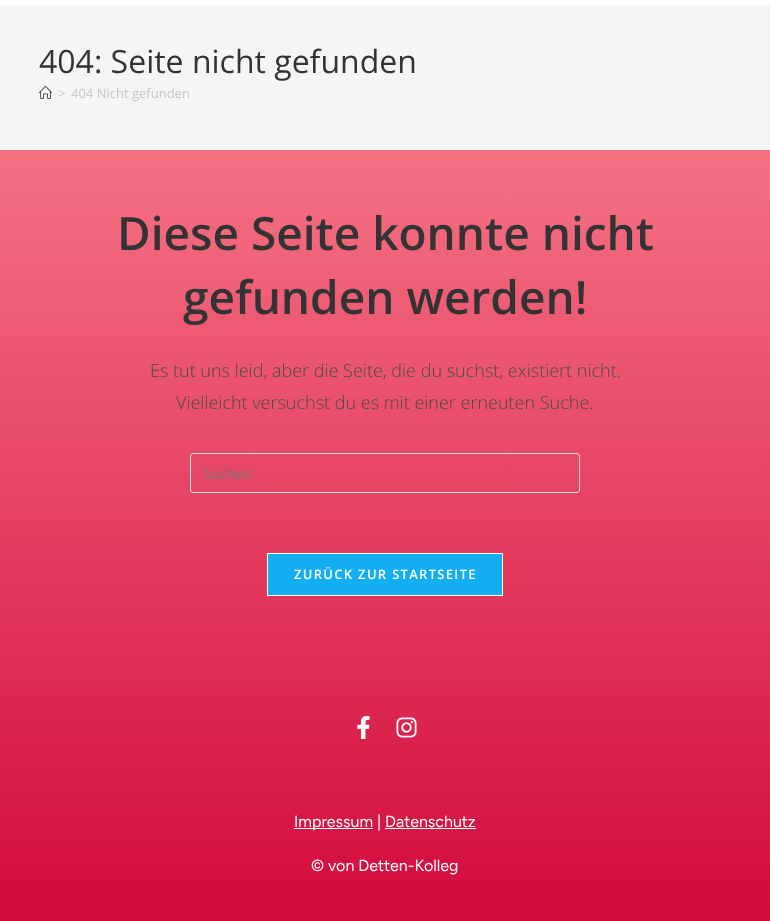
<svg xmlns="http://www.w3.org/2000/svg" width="770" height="921">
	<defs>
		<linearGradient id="g1" gradientUnits="userSpaceOnUse" x1="385" y1="-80" x2="385" y2="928"><stop offset="0" stop-color="#FF9198" /><stop offset="1" stop-color="#D2093B" /></linearGradient>
	</defs>
	<rect width="100%" height="100%" fill="#FFFFFF" />
	<rect x="0" y="150" width="770" height="771" fill="url(#g1)" />
	<rect x="0" y="5" width="770" height="145" fill="#F5F5F5" />
	<text x="39" y="73" font-family="Open Sans" font-size="32" fill="#333333">404: Seite nicht gefunden</text>
	<image x="39" y="85" width="13" height="14" href="assets/img1.png" />
	<g font-family="Open Sans" font-size="13" fill="#C6C6C6">
		<text x="58" y="98">&gt;</text>
		<text x="71" y="98">404 Nicht gefunden</text>
	</g>
	<g font-family="Open Sans" font-size="46" font-weight="600" fill="#333333">
		<text x="117" y="250">Diese Seite konnte nicht</text>
		<text x="183" y="314">gefunden werden!</text>
	</g>
	<g font-family="Open Sans" font-size="18" font-weight="300" fill="#4A4A4A">
		<text x="150" y="377">Es tut uns leid, aber die Seite, die du suchst, existiert nicht.</text>
		<text x="176" y="409">Vielleicht versuchst du es mit einer erneuten Suche.</text>
	</g>
	<rect x="190.5" y="453.5" width="389" height="39" rx="2.5" fill="none" stroke="#DDDDDD" />
	<text x="203" y="479" font-family="Open Sans" font-size="14" fill="#757575">Suchen</text>
	<rect x="267.5" y="553.5" width="235" height="42" fill="#13AFF0" stroke="#FFFFFF" />
	<text x="294" y="579" font-family="Open Sans" font-size="13" font-weight="600" letter-spacing="1.3" fill="#FFFFFF">ZURÜCK ZUR STARTSEITE</text>
	<image x="357" y="716" width="13" height="23" href="assets/img2.png" />
	<image x="396" y="717" width="21" height="21" href="assets/img3.png" />
	<rect x="294" y="828" width="79" height="1" fill="#FFFFFF" />
	<text x="294" y="827" font-family="Figtree" font-size="16" fill="#FFFFFF">Impressum | Datenschutz</text>
	<rect x="385" y="828" width="91" height="1" fill="#FFFFFF" />
	<text x="311" y="871" font-family="Figtree" font-size="16" fill="#FFFFFF">© von Detten-Kolleg</text>
</svg>
